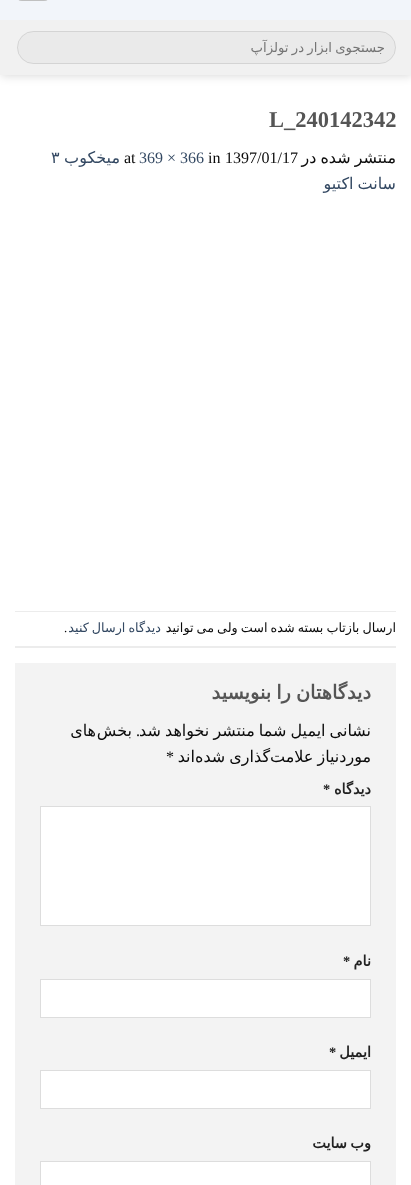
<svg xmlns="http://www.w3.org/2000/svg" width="411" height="1185">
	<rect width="100%" height="100%" fill="#FFFFFF" />
	<rect x="1" y="-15" width="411" height="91" fill="#000000" fill-opacity="0.15" filter="blur(5px)" />
	<rect x="0" y="0" width="411" height="20" fill="#F2F5FA" />
	<rect x="17.5" y="-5.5" width="31" height="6" rx="4.5" fill="none" stroke="#C0C0C0" />
	<rect x="0" y="20" width="411" height="55" fill="#F1F1F1" />
	<rect x="17" y="31" width="379" height="33" rx="16.5" fill="#EAEAEA" />
	<rect x="17.5" y="31.5" width="378" height="32" rx="16" fill="none" stroke="#000000" stroke-opacity="0.09" />
	<text x="385" y="52" word-spacing="-1" font-family="DejaVu Sans" font-size="13.25" direction="rtl" fill="#757575">جستجوی ابزار در تولزآپ</text>
	<text x="269" y="127" font-family="Liberation Serif" font-size="22.5" font-weight="700" fill="#555555">L_240142342</text>
	<text x="396" y="163" word-spacing="-1" font-family="DejaVu Sans" font-size="16" direction="rtl" fill="#0A0A0A">منتشر شده در</text>
	<g font-family="Liberation Serif" font-size="16" fill="#0A0A0A">
		<text x="225" y="163">1397/01/17</text>
		<text x="208" y="163">in</text>
	</g>
	<text x="139" y="163" font-family="Liberation Serif" font-size="16" fill="#334862">369 × 366</text>
	<text x="124" y="163" font-family="Liberation Serif" font-size="16" fill="#0A0A0A">at</text>
	<text x="120" y="163" font-family="DejaVu Sans" font-size="16" direction="rtl" fill="#334862">میخکوب</text>
	<text x="51" y="163" font-family="DejaVu Sans" font-size="16" fill="#334862">۳</text>
	<text x="396" y="189" word-spacing="-1" font-family="DejaVu Sans" font-size="16" direction="rtl" fill="#334862">سانت اکتیو</text>
	<rect x="15" y="611" width="381" height="1" fill="#ECECEC" />
	<rect x="15" y="646" width="381" height="2" fill="#ECECEC" />
	<text x="396" y="632" word-spacing="-1" font-family="DejaVu Sans" font-size="12.75" direction="rtl" fill="#0A0A0A">ارسال بازتاب بسته شده است ولی می توانید</text>
	<text x="161" y="632" word-spacing="-1" font-family="DejaVu Sans" font-size="12.75" direction="rtl" fill="#334862">دیدگاه ارسال کنید</text>
	<text x="64" y="632" font-family="Liberation Serif" font-size="12.75" fill="#0A0A0A">.</text>
	<rect x="15" y="663" width="381" height="522" fill="#F3F3F3" />
	<text x="371" y="699" word-spacing="-1" font-family="DejaVu Sans" font-size="19.25" font-weight="700" direction="rtl" fill="#555555">دیدگاهتان را بنویسید</text>
	<text x="371" y="736" word-spacing="-1" font-family="DejaVu Sans" font-size="16" direction="rtl" fill="#0A0A0A">نشانی ایمیل شما منتشر نخواهد شد</text>
	<text x="140" y="736" font-family="Liberation Serif" font-size="16" direction="rtl" fill="#0A0A0A">.</text>
	<g font-family="DejaVu Sans" font-size="16" direction="rtl" fill="#0A0A0A">
		<text x="132" y="736">بخش</text>
		<text x="96" y="736">های</text>
		<text x="371" y="762" word-spacing="-1">موردنیاز علامت</text>
		<text x="270" y="762" word-spacing="-1">گذاری شده</text>
		<text x="195" y="762">اند</text>
	</g>
	<text x="166" y="762" font-family="Liberation Serif" font-size="16" fill="#0A0A0A">*</text>
	<text x="371" y="794" font-family="DejaVu Sans" font-size="14.5" font-weight="700" direction="rtl" fill="#222222">دیدگاه</text>
	<text x="323" y="794" font-family="Liberation Serif" font-size="14.5" font-weight="700" fill="#222222">*</text>
	<rect x="40.5" y="806.5" width="330" height="119" fill="#FFFFFF" stroke="#DDDDDD" />
	<text x="371" y="966" font-family="DejaVu Sans" font-size="14.5" font-weight="700" direction="rtl" fill="#222222">نام</text>
	<text x="343" y="966" font-family="Liberation Serif" font-size="14.5" font-weight="700" fill="#222222">*</text>
	<rect x="40.5" y="979.5" width="330" height="38" fill="#FFFFFF" stroke="#DDDDDD" />
	<text x="371" y="1057" font-family="DejaVu Sans" font-size="14.5" font-weight="700" direction="rtl" fill="#222222">ایمیل</text>
	<text x="329" y="1057" font-family="Liberation Serif" font-size="14.5" font-weight="700" fill="#222222">*</text>
	<rect x="40.5" y="1070.5" width="330" height="38" fill="#FFFFFF" stroke="#DDDDDD" />
	<g font-family="DejaVu Sans" font-size="14.5" font-weight="700" direction="rtl" fill="#222222">
		<text x="371" y="1148">وب</text>
		<text x="347" y="1148">سایت</text>
	</g>
	<rect x="40.5" y="1161.5" width="330" height="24" fill="#FFFFFF" stroke="#DDDDDD" />
</svg>
